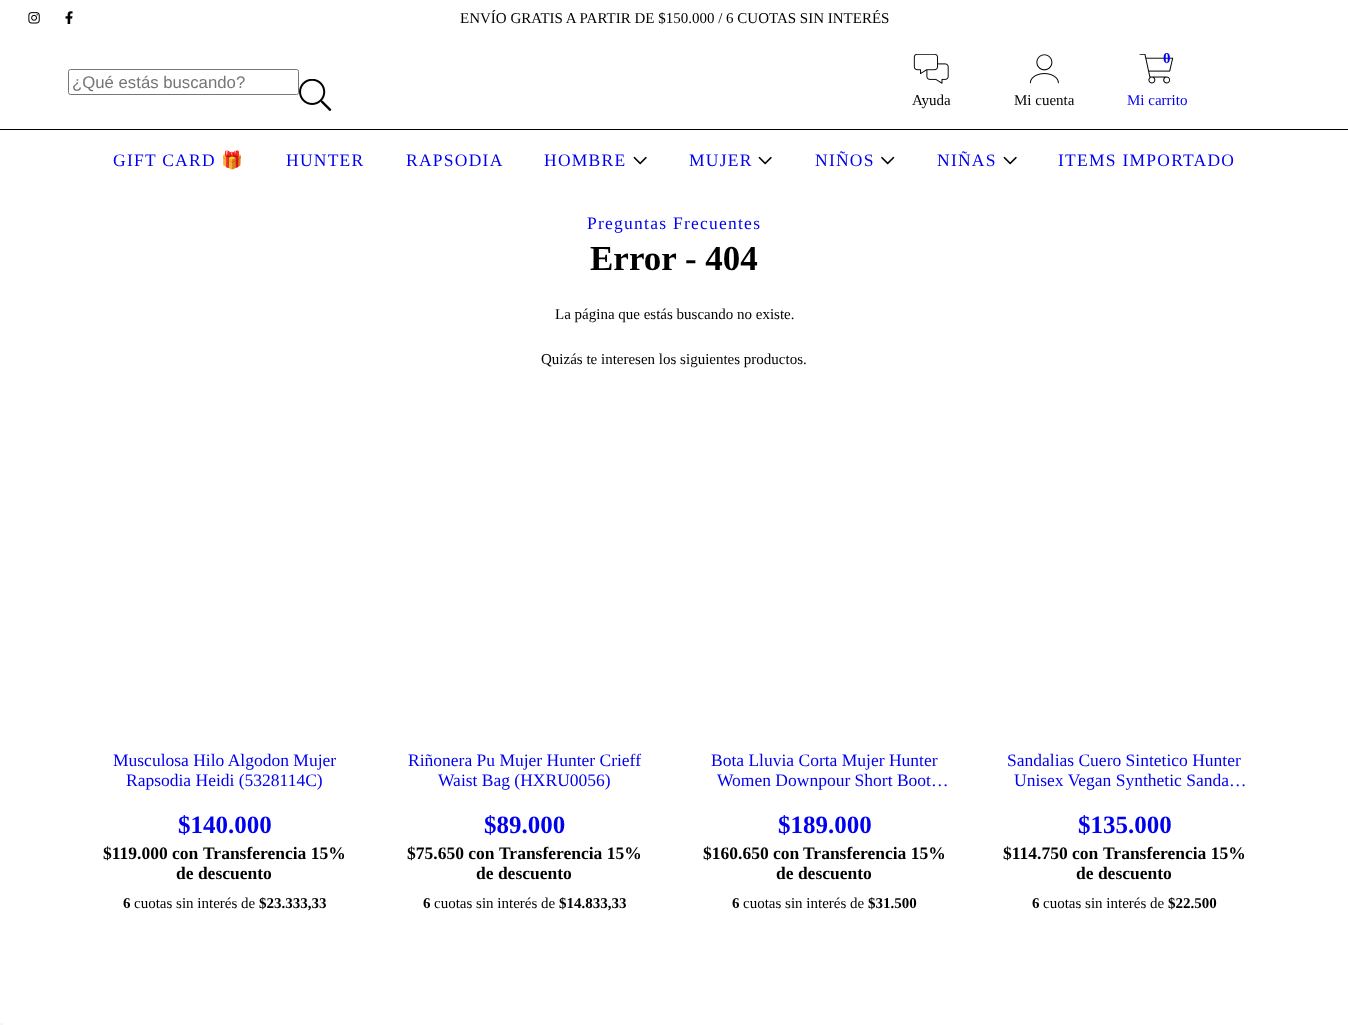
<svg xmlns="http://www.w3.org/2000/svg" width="1348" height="1025">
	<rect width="100%" height="100%" fill="#FFFFFF" />
	<image x="28" y="12" width="12" height="12" href="assets/img1.png" />
	<image x="65" y="11" width="8" height="13" href="assets/img2.png" />
	<text x="460" y="23" font-family="Liberation Serif" font-size="15" fill="#000000">ENVÍO GRATIS A PARTIR DE $150.000 / 6 CUOTAS SIN INTERÉS</text>
	<rect x="68.5" y="69.5" width="230" height="25" rx="2" fill="none" stroke="#767676" />
	<text x="72" y="88" font-family="Liberation Sans" font-size="16.75" fill="#757575">¿Qué estás buscando?</text>
	<image x="299" y="79" width="33" height="32" href="assets/img3.png" />
	<image x="913" y="54" width="36" height="30" href="assets/img4.png" />
	<text x="912" y="105" font-family="Liberation Serif" font-size="15" fill="#000000">Ayuda</text>
	<image x="1029" y="54" width="30" height="30" href="assets/img5.png" />
	<text x="1014" y="105" font-family="Liberation Serif" font-size="15" fill="#000000">Mi cuenta</text>
	<image x="1139" y="54" width="35" height="30" href="assets/img6.png" />
	<text x="1163" y="63" font-family="Liberation Serif" font-size="15" font-weight="700" fill="#0000EE">0</text>
	<text x="1127" y="105" font-family="Liberation Serif" font-size="15" fill="#0000EE">Mi carrito</text>
	<rect x="0" y="129" width="1348" height="1" fill="#000000" />
	<text x="113" y="166" font-family="Liberation Serif" font-size="17.5" letter-spacing="1.25" fill="#0000EE">GIFT CARD</text>
	<text x="221" y="166" font-family="Noto Color Emoji" font-size="17.5" letter-spacing="1.25" fill="#0000EE">🎁</text>
	<g font-family="Liberation Serif" font-size="17.5" letter-spacing="1.25" fill="#0000EE">
		<text x="286" y="166">HUNTER</text>
		<text x="406" y="166">RAPSODIA</text>
		<text x="544" y="166">HOMBRE</text>
	</g>
	<image x="633" y="156" width="14" height="9" href="assets/img7.png" />
	<text x="689" y="166" font-family="Liberation Serif" font-size="17.5" letter-spacing="1.25" fill="#0000EE">MUJER</text>
	<image x="758" y="156" width="14" height="9" href="assets/img7.png" />
	<text x="815" y="166" font-family="Liberation Serif" font-size="17.5" letter-spacing="1.25" fill="#0000EE">NIÑOS</text>
	<image x="881" y="156" width="14" height="9" href="assets/img8.png" />
	<text x="937" y="166" font-family="Liberation Serif" font-size="17.5" letter-spacing="1.25" fill="#0000EE">NIÑAS</text>
	<image x="1003" y="156" width="14" height="9" href="assets/img7.png" />
	<g font-family="Liberation Serif" font-size="17.5" letter-spacing="1.25" fill="#0000EE">
		<text x="1058" y="166">ITEMS IMPORTADO</text>
		<text x="587" y="229">Preguntas Frecuentes</text>
	</g>
	<text x="590" y="270" font-family="Liberation Serif" font-size="35" font-weight="700" fill="#000000">Error - 404</text>
	<g font-family="Liberation Serif" font-size="15" fill="#000000">
		<text x="555" y="319">La página que estás buscando no existe.</text>
		<text x="541" y="364">Quizás te interesen los siguientes productos.</text>
	</g>
	<g font-family="Liberation Serif" font-size="17.5" fill="#0000EE">
		<text x="113" y="766">Musculosa Hilo Algodon Mujer</text>
		<text x="126" y="786">Rapsodia Heidi (5328114C)</text>
	</g>
	<text x="178" y="833" font-family="Liberation Serif" font-size="25" font-weight="700" fill="#0000EE">$140.000</text>
	<g font-family="Liberation Serif" font-size="17.5" font-weight="700" fill="#000000">
		<text x="103" y="859">$119.000 con</text>
		<text x="203" y="859">Transferencia 15%</text>
		<text x="176" y="879">de descuento</text>
	</g>
	<text x="123" y="908" font-family="Liberation Serif" font-size="15" font-weight="700" fill="#000000">6</text>
	<text x="134" y="908" font-family="Liberation Serif" font-size="15" fill="#000000">cuotas sin interés de</text>
	<text x="259" y="908" font-family="Liberation Serif" font-size="15" font-weight="700" fill="#000000">$23.333,33</text>
	<g font-family="Liberation Serif" font-size="17.5" fill="#0000EE">
		<text x="408" y="766">Riñonera Pu Mujer Hunter Crieff</text>
		<text x="438" y="786">Waist Bag (HXRU0056)</text>
	</g>
	<text x="484" y="833" font-family="Liberation Serif" font-size="25" font-weight="700" fill="#0000EE">$89.000</text>
	<g font-family="Liberation Serif" font-size="17.5" font-weight="700" fill="#000000">
		<text x="407" y="859">$75.650 con</text>
		<text x="499" y="859">Transferencia 15%</text>
		<text x="476" y="879">de descuento</text>
	</g>
	<text x="423" y="908" font-family="Liberation Serif" font-size="15" font-weight="700" fill="#000000">6</text>
	<text x="434" y="908" font-family="Liberation Serif" font-size="15" fill="#000000">cuotas sin interés de</text>
	<text x="559" y="908" font-family="Liberation Serif" font-size="15" font-weight="700" fill="#000000">$14.833,33</text>
	<g font-family="Liberation Serif" font-size="17.5" fill="#0000EE">
		<text x="711" y="766">Bota Lluvia Corta Mujer Hunter</text>
		<text x="717" y="786">Women Downpour Short Boot…</text>
	</g>
	<text x="778" y="833" font-family="Liberation Serif" font-size="25" font-weight="700" fill="#0000EE">$189.000</text>
	<g font-family="Liberation Serif" font-size="17.5" font-weight="700" fill="#000000">
		<text x="703" y="859">$160.650 con</text>
		<text x="803" y="859">Transferencia 15%</text>
		<text x="776" y="879">de descuento</text>
	</g>
	<text x="732" y="908" font-family="Liberation Serif" font-size="15" font-weight="700" fill="#000000">6</text>
	<text x="743" y="908" font-family="Liberation Serif" font-size="15" fill="#000000">cuotas sin interés de</text>
	<text x="868" y="908" font-family="Liberation Serif" font-size="15" font-weight="700" fill="#000000">$31.500</text>
	<g font-family="Liberation Serif" font-size="17.5" fill="#0000EE">
		<text x="1007" y="766">Sandalias Cuero Sintetico Hunter</text>
		<text x="1014" y="786">Unisex Vegan Synthetic Sanda…</text>
	</g>
	<text x="1078" y="833" font-family="Liberation Serif" font-size="25" font-weight="700" fill="#0000EE">$135.000</text>
	<g font-family="Liberation Serif" font-size="17.5" font-weight="700" fill="#000000">
		<text x="1003" y="859">$114.750 con</text>
		<text x="1103" y="859">Transferencia 15%</text>
		<text x="1076" y="879">de descuento</text>
	</g>
	<text x="1032" y="908" font-family="Liberation Serif" font-size="15" font-weight="700" fill="#000000">6</text>
	<text x="1043" y="908" font-family="Liberation Serif" font-size="15" fill="#000000">cuotas sin interés de</text>
	<text x="1168" y="908" font-family="Liberation Serif" font-size="15" font-weight="700" fill="#000000">$22.500</text>
	<rect x="0" y="1023" width="3" height="2" fill="#F5F5F5" />
</svg>
